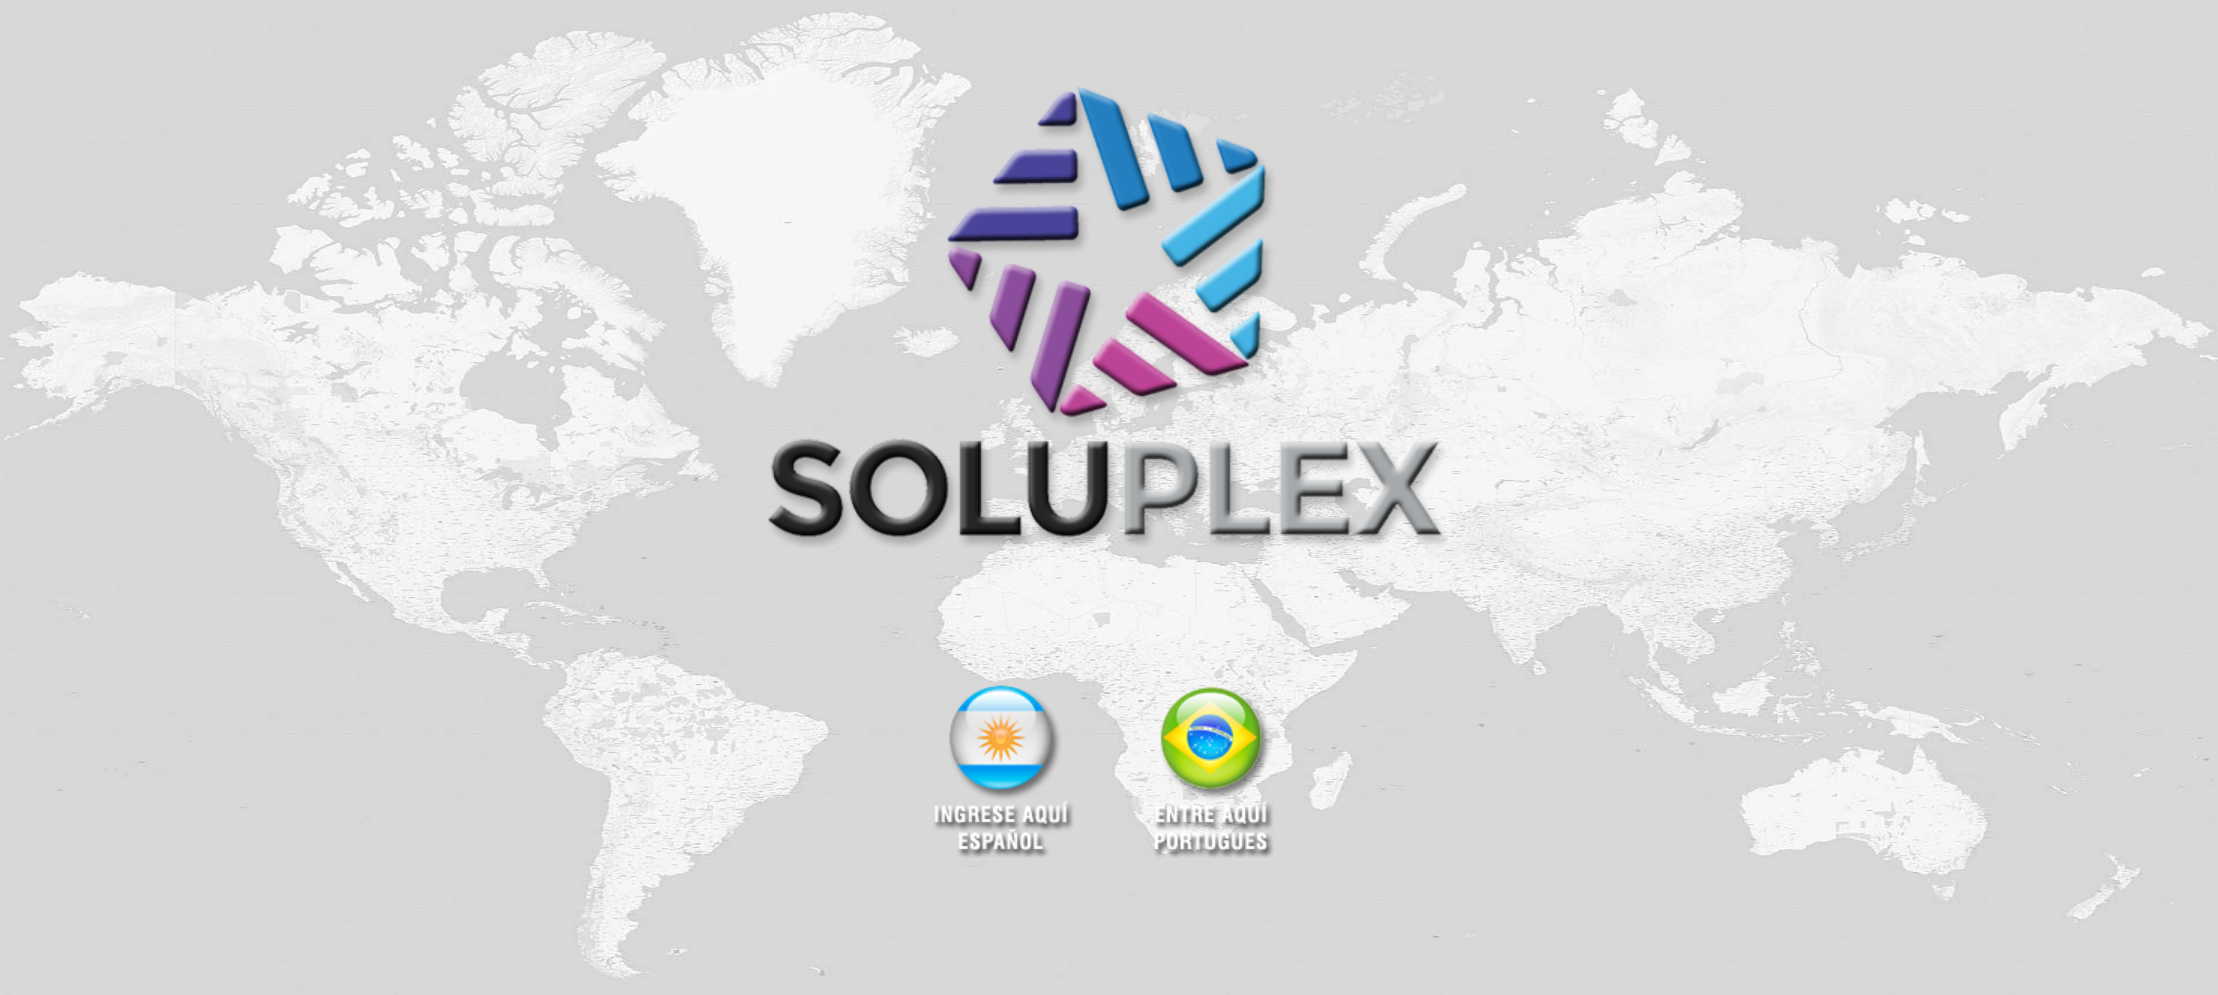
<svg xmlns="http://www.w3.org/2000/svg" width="2218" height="995">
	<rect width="100%" height="100%" fill="#FFFFFF" />
	<image x="0" y="0" width="2218" height="995" href="assets/img1.png" />
	<image x="767" y="86" width="681" height="462" href="assets/img2.png" />
	<image x="933" y="685" width="141" height="173" href="assets/img3.png" />
	<image x="1153" y="686" width="121" height="172" href="assets/img4.png" />
</svg>
